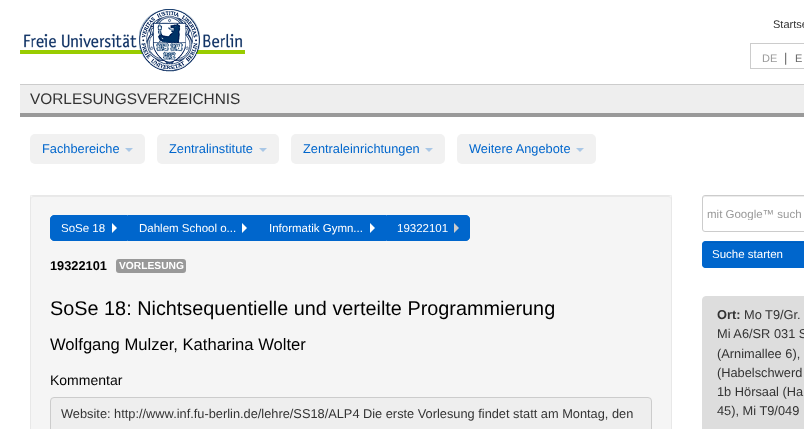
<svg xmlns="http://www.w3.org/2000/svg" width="804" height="429">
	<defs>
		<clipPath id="clip1"><rect x="707" y="208" width="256" height="12" /></clipPath>
	</defs>
	<rect width="100%" height="100%" fill="#FFFFFF" />
	<image x="20" y="9" width="225" height="63" href="assets/img1.png" />
	<text x="773" y="28" font-family="Liberation Sans" font-size="11" fill="#333333">Startse</text>
	<rect x="750.5" y="43.5" width="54" height="25" fill="none" stroke="#CCCCCC" />
	<text x="762" y="62" font-family="Liberation Sans" font-size="11" fill="#999999">DE</text>
	<text x="784" y="62" font-family="Liberation Sans" font-size="12.8" fill="#666666">|</text>
	<text x="795" y="62" font-family="Liberation Sans" font-size="11" fill="#666666">E</text>
	<rect x="20" y="85" width="784" height="28" fill="#EEEEEE" />
	<rect x="20" y="84" width="784" height="1" fill="#CCCCCC" />
	<rect x="20" y="113" width="784" height="4" fill="#999999" />
	<text x="30" y="104" font-family="Liberation Sans" font-size="15.4" fill="#333333">VORLESUNGSVERZEICHNIS</text>
	<rect x="30" y="134" width="115" height="30" rx="5" fill="#F1F1F1" />
	<text x="42" y="153" font-family="Liberation Sans" font-size="12.8" fill="#0066CC">Fachbereiche</text>
	<path d="M125 148H133L129 152Z" fill="#A9C7E6" />
	<rect x="157" y="134" width="122" height="30" rx="5" fill="#F1F1F1" />
	<text x="169" y="153" font-family="Liberation Sans" font-size="12.8" fill="#0066CC">Zentralinstitute</text>
	<path d="M259 148H267L263 152Z" fill="#A9C7E6" />
	<rect x="291" y="134" width="154" height="30" rx="5" fill="#F1F1F1" />
	<text x="303" y="153" font-family="Liberation Sans" font-size="12.8" fill="#0066CC">Zentraleinrichtungen</text>
	<path d="M425 148H433L429 152Z" fill="#A9C7E6" />
	<rect x="457" y="134" width="139" height="30" rx="5" fill="#F1F1F1" />
	<text x="469" y="153" font-family="Liberation Sans" font-size="12.8" fill="#0066CC">Weitere Angebote</text>
	<path d="M576 148H584L580 152Z" fill="#A9C7E6" />
	<rect x="30" y="195" width="642" height="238" rx="4" fill="#F5F5F5" />
	<path d="M34 197H668C670 197 671 198 671 200V199C671 197 670 196 668 196H34C32 196 31 197 31 199V200C31 198 32 197 34 197Z" fill="#E9E9E9" />
	<rect x="30.5" y="195.5" width="641" height="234" fill="none" stroke="#000000" stroke-opacity="0.05" />
	<path d="M54 215.5H127.5V240.5H54C52 240.5 50.5 239 50.5 237V219C50.5 217 52 215.5 54 215.5Z" fill="#0066CC" stroke="#0066CC" />
	<text x="61" y="232" font-family="Liberation Sans" font-size="11.5" fill="#FFFFFF">SoSe 18</text>
	<path d="M112 233V223L117 228Z" fill="#FFFFFF" />
	<rect x="128" y="215" width="258" height="26" fill="#0066CC" />
	<text x="139" y="232" font-family="Liberation Sans" font-size="11.5" fill="#FFFFFF">Dahlem School o...</text>
	<path d="M242 233V223L247 228Z" fill="#FFFFFF" />
	<text x="269" y="232" font-family="Liberation Sans" font-size="11.5" fill="#FFFFFF">Informatik Gymn...</text>
	<path d="M370 233V223L375 228Z" fill="#FFFFFF" />
	<path d="M386.5 215.5H466C468 215.5 469.5 217 469.5 219V237C469.5 239 468 240.5 466 240.5H386.5Z" fill="#0066CC" stroke="#0066CC" />
	<text x="397" y="232" font-family="Liberation Sans" font-size="11.5" fill="#FFFFFF">19322101</text>
	<path d="M454 233V223L459 228Z" fill="#CCCCCC" />
	<text x="50" y="270" font-family="Liberation Sans" font-size="12.8" font-weight="700" fill="#000000">19322101</text>
	<rect x="116" y="259" width="70" height="14" rx="3" fill="#999999" />
	<text x="119" y="269" font-family="Liberation Sans" font-size="10.25" font-weight="700" fill="#FFFFFF">VORLESUNG</text>
	<text x="50" y="315" font-family="Liberation Sans" font-size="19.85" fill="#000000">SoSe 18: Nichtsequentielle und verteilte Programmierung</text>
	<text x="50" y="350" font-family="Liberation Sans" font-size="16.6" fill="#000000">Wolfgang Mulzer, Katharina Wolter</text>
	<text x="50" y="385" font-family="Liberation Sans" font-size="14" fill="#000000">Kommentar</text>
	<rect x="50.5" y="397.5" width="601" height="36" rx="3.5" fill="#EEEEEE" stroke="#CCCCCC" />
	<g font-family="Liberation Sans" font-size="12.8" fill="#333333">
		<text x="61" y="418">Website: http://www.inf.fu-berlin.de/lehre/SS18/ALP4</text>
		<text x="363" y="418">Die erste Vorlesung findet statt am Montag, den</text>
	</g>
	<path d="M705 197H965C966 197 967 198 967 199V198C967 197 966 196 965 196H705C704 196 703 197 703 198V199C703 198 704 197 705 197Z" fill="#ECECEC" />
	<rect x="702.5" y="195.5" width="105" height="36" rx="2.5" fill="none" stroke="#CCCCCC" />
	<g clip-path="url(#clip1)">
		<text x="707" y="218" font-family="Liberation Sans" font-size="11.5" fill="#999999">mit Google™ such</text>
	</g>
	<rect x="702" y="241" width="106" height="27" rx="4" fill="#0066CC" />
	<path d="M706 243H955L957 244V246C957 244 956 242 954 242H706C704 242 703 244 703 246C703 244 704 243 706 243Z" fill="#005EBD" />
	<rect x="702.5" y="241.5" width="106" height="26" rx="3.5" fill="none" stroke="#0066CC" />
	<text x="712" y="258" font-family="Liberation Sans" font-size="11.5" fill="#FFFFFF">Suche starten</text>
	<rect x="702.5" y="296.5" width="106" height="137" rx="3.5" fill="#DDDDDD" stroke="#DDDDDD" />
	<text x="717" y="319" font-family="Liberation Sans" font-size="12.8" font-weight="700" fill="#333333">Ort:</text>
	<g font-family="Liberation Sans" font-size="12.8" fill="#333333">
		<text x="744" y="319">Mo T9/Gr.</text>
		<text x="717" y="338">Mi A6/SR 031 S</text>
		<text x="717" y="358">(Arnimallee 6),</text>
		<text x="717" y="377">(Habelschwerd</text>
		<text x="717" y="396">1b Hörsaal (Ha</text>
		<text x="717" y="415">45), Mi T9/049</text>
	</g>
</svg>
